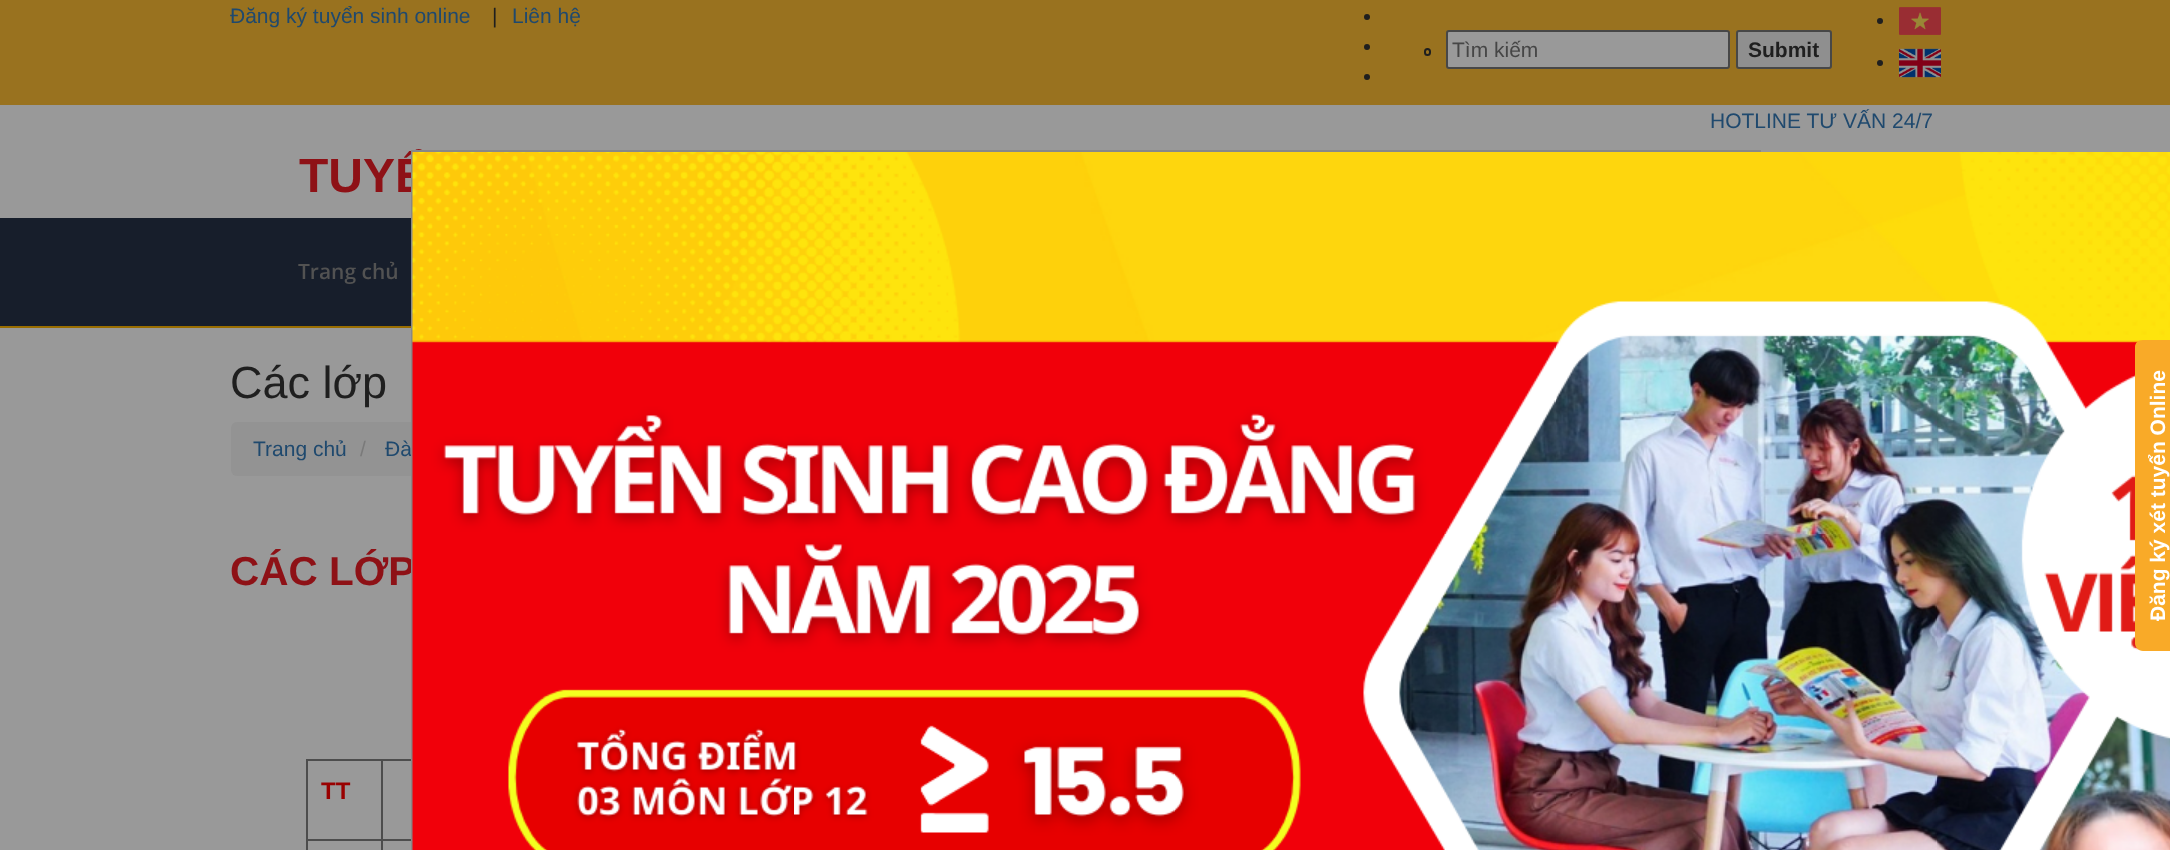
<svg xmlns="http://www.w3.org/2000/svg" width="2170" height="850">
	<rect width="100%" height="100%" fill="#999999" />
	<rect x="0" y="0" width="2170" height="105" fill="#99721F" />
	<text x="230" y="23" font-family="Liberation Sans" font-size="21" fill="#1F496E">Đăng ký tuyển sinh online</text>
	<text x="492" y="23" font-family="Liberation Sans" font-size="21" fill="#1F1F1F">|</text>
	<text x="512" y="23" font-family="Liberation Sans" font-size="21" fill="#1F496E">Liên hệ</text>
	<circle cx="1367" cy="17" r="3" fill="#1F1F1F" />
	<circle cx="1367" cy="47" r="3" fill="#1F1F1F" />
	<circle cx="1367" cy="77" r="3" fill="#1F1F1F" />
	<rect x="1425" y="49" width="5" height="6" rx="2.5" fill="none" stroke="#1F1F1F" stroke-width="2" />
	<rect x="1447" y="31" width="282" height="37" rx="2" fill="#999999" stroke="#474747" stroke-width="2" />
	<text x="1452" y="57" font-family="Liberation Sans" font-size="21" fill="#464646">Tìm kiếm</text>
	<rect x="1737" y="31" width="94" height="37" rx="2" fill="#8F8F8F" stroke="#474747" stroke-width="2" />
	<text x="1748" y="57" font-family="Liberation Sans" font-size="21" font-weight="700" fill="#1F1F1F">Submit</text>
	<circle cx="1880" cy="21" r="3" fill="#1F1F1F" />
	<image x="1899" y="7" width="42" height="28" href="assets/img1.png" />
	<circle cx="1880" cy="63" r="3" fill="#1F1F1F" />
	<image x="1899" y="48" width="42" height="30" href="assets/img2.png" />
	<text x="1710" y="128" font-family="Liberation Sans" font-size="21" fill="#1F496E">HOTLINE TƯ VẤN 24/7</text>
	<text x="299" y="192" font-family="Liberation Sans" font-size="48" font-weight="700" fill="#8E1116">TUYỂ</text>
	<rect x="0" y="218" width="411" height="108" fill="#171E2B" />
	<rect x="0" y="326" width="411" height="2" fill="#996D00" />
	<text x="298" y="279" font-family="Open Sans" font-size="21" font-weight="600" fill="#525252">Trang chủ</text>
	<text x="230" y="398" font-family="Liberation Sans" font-size="45" fill="#1F1F1F">Các lớp</text>
	<rect x="231" y="422" width="1710" height="54" rx="6" fill="#939393" />
	<text x="253" y="456" font-family="Liberation Sans" font-size="21" fill="#1F496E">Trang chủ</text>
	<text x="360" y="456" font-family="Liberation Sans" font-size="21" fill="#7A7A7A">/</text>
	<text x="385" y="456" font-family="Liberation Sans" font-size="21" fill="#1F496E">Đà</text>
	<text x="230" y="585" font-family="Liberation Sans" font-size="40.5" font-weight="700" fill="#8E1116">CÁC LỚP</text>
	<rect x="306" y="759" width="105" height="2" fill="#4D4D4D" />
	<rect x="306" y="759" width="2" height="91" fill="#4D4D4D" />
	<text x="321" y="799" font-family="Liberation Sans" font-size="24" font-weight="700" fill="#990000">TT</text>
	<rect x="381" y="839" width="30" height="2" fill="#4D4D4D" />
	<rect x="381" y="839" width="2" height="11" fill="#4D4D4D" />
	<rect x="306" y="839" width="77" height="2" fill="#4D4D4D" />
	<rect x="381" y="759" width="2" height="81" fill="#4D4D4D" />
	<rect x="412" y="151" width="1348" height="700" fill="none" stroke="#888888" stroke-width="2" />
	<image x="412" y="152" width="1758" height="698" href="assets/img3.png" />
	<path d="M2135 643V347C2135 343 2138 340 2143 340H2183V651H2143C2138 651 2135 647 2135 643Z" fill="#F9AA28" />
	<text x="2165" y="621" transform="rotate(-90 2165 621)" font-family="Liberation Sans" font-size="21" font-weight="700" fill="#FFFFFF">Đăng ký xét tuyển Online</text>
</svg>
